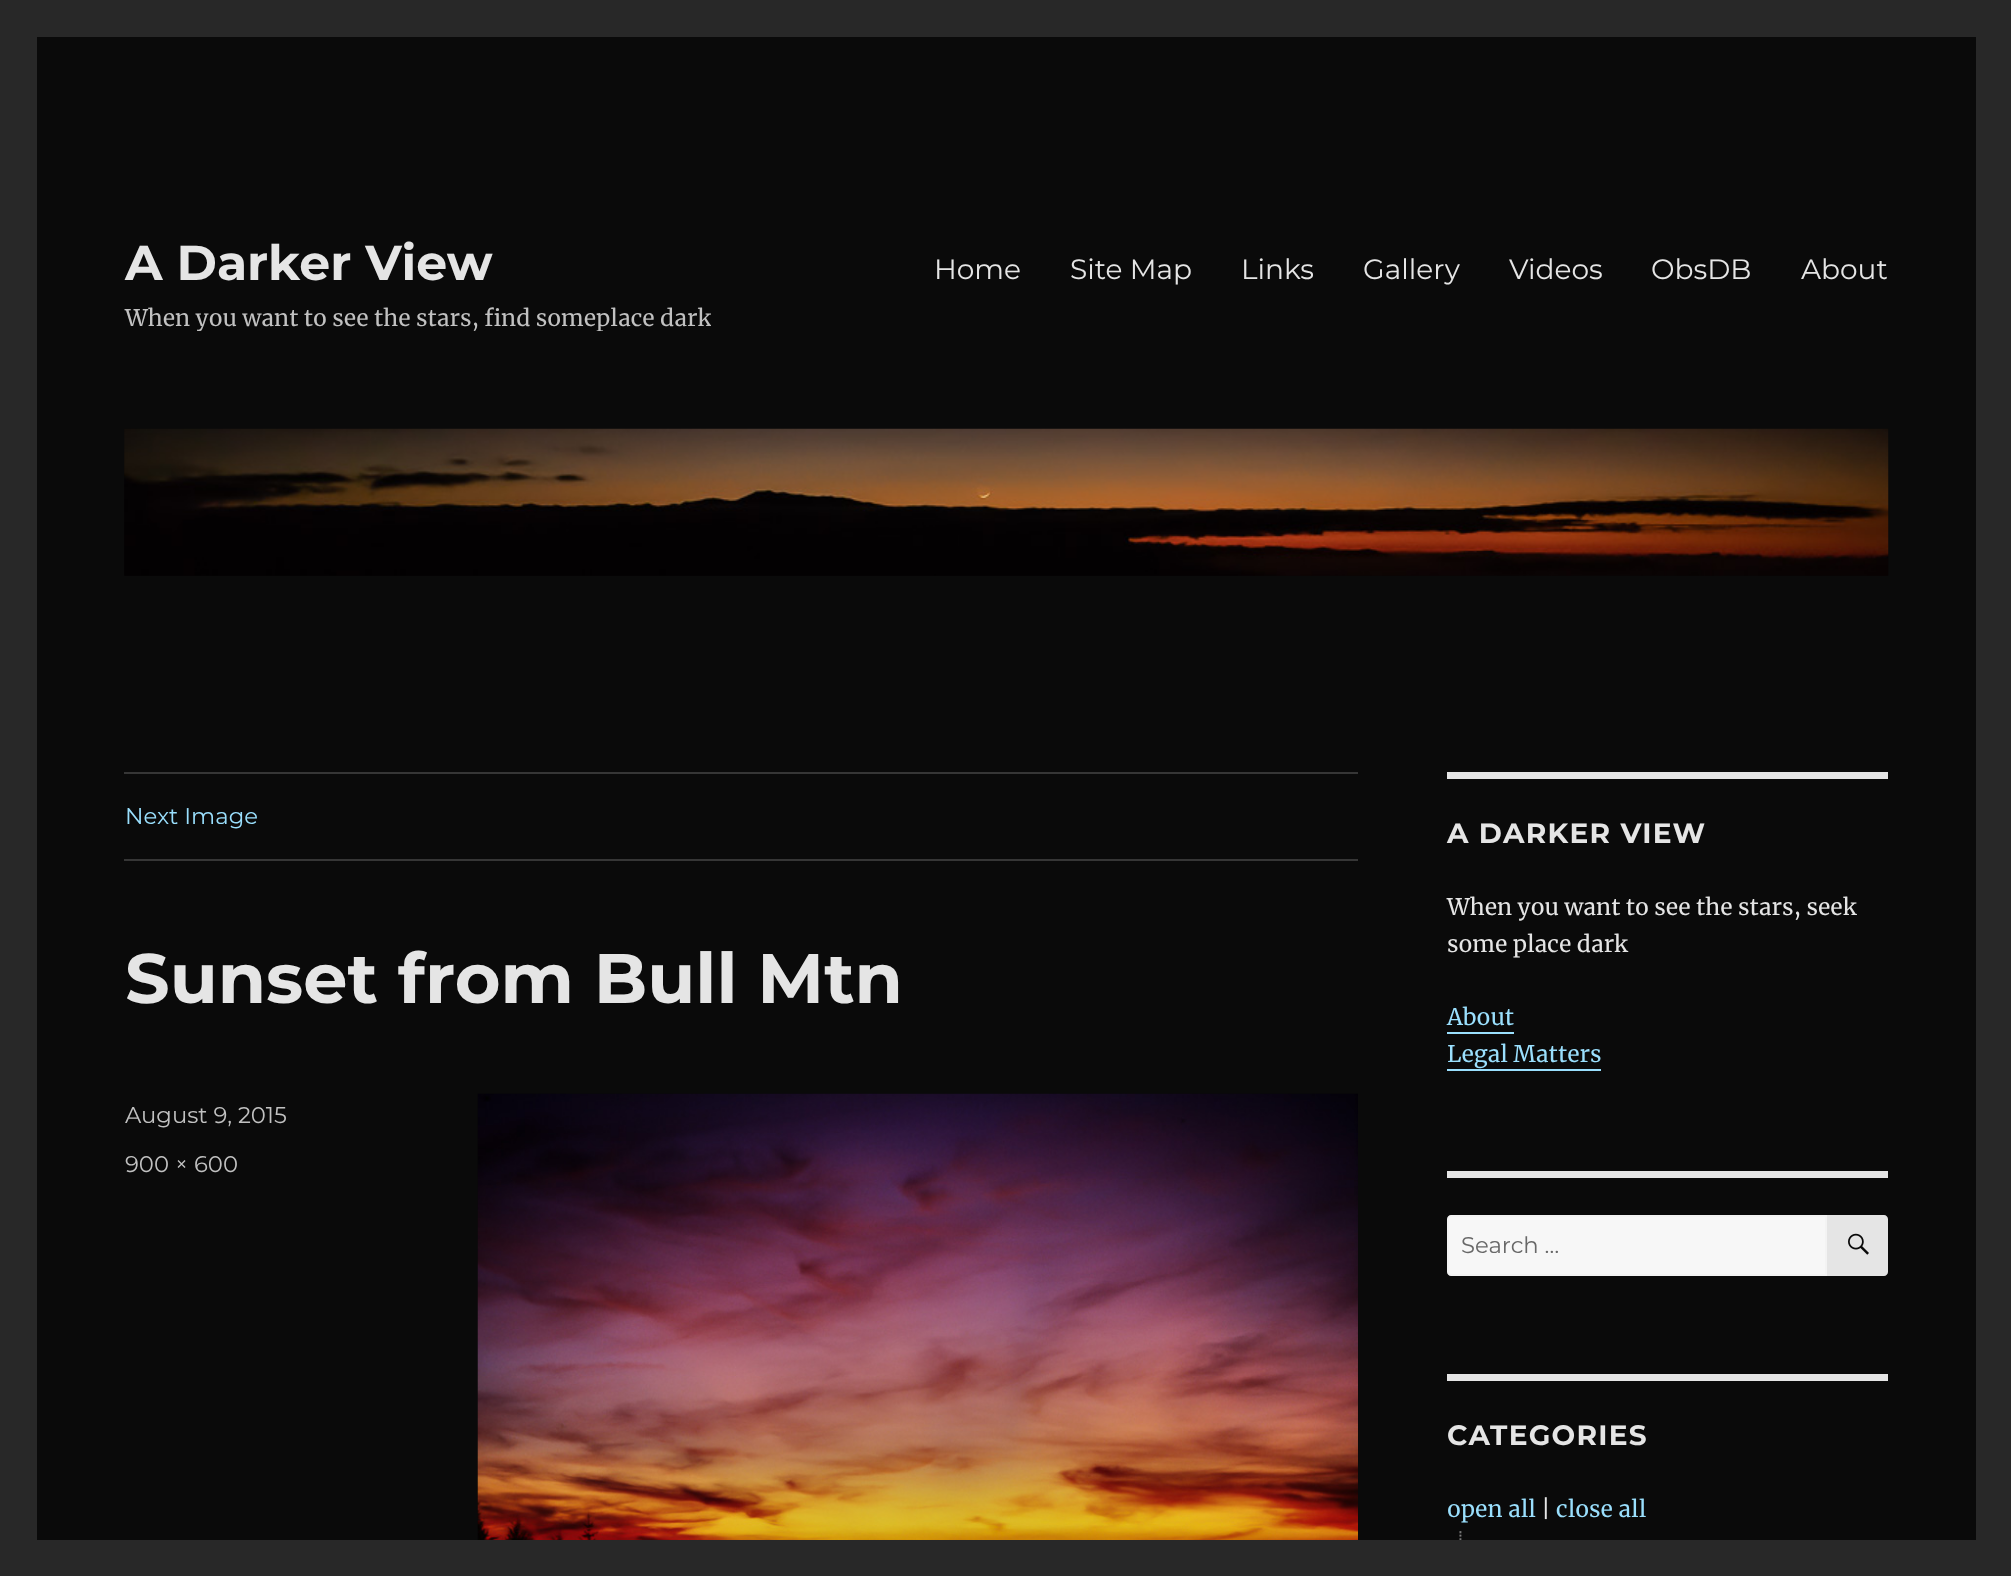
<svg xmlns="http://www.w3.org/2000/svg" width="2011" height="1576">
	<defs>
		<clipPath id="clip1"><rect x="124" y="233" width="587" height="98" /></clipPath>
	</defs>
	<rect width="100%" height="100%" fill="#282828" />
	<rect x="37" y="37" width="1939" height="1503" fill="#0A0A0A" />
	<text x="125" y="280" font-family="Montserrat" font-size="49" font-weight="100" fill="#E5E5E5">A Darker View</text>
	<g clip-path="url(#clip1)">
		<text x="125" y="326" font-family="Merriweather" font-size="22.75" fill="#C1C1C1">When you want to see the stars, find someplace dark</text>
	</g>
	<g font-family="'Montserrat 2'" font-size="28" font-weight="100" fill="#E5E5E5">
		<text x="934" y="279">Home</text>
		<text x="1070" y="279">Site Map</text>
		<text x="1241" y="279">Links</text>
		<text x="1363" y="279">Gallery</text>
		<text x="1509" y="279">Videos</text>
		<text x="1651" y="279">ObsDB</text>
		<text x="1801" y="279">About</text>
	</g>
	<image x="124" y="428" width="1765" height="148" href="assets/img1.png" />
	<rect x="124" y="772" width="1234" height="2" fill="#363636" />
	<rect x="124" y="859" width="1234" height="2" fill="#363636" />
	<text x="125" y="824" font-family="'Montserrat 2'" font-size="22.75" font-weight="100" fill="#9ADFFD">Next Image</text>
	<text x="125" y="1003" font-family="Montserrat" font-size="70" font-weight="100" fill="#E5E5E5">Sunset from Bull Mtn</text>
	<g font-family="'Montserrat 2'" font-size="22.75" font-weight="100" fill="#C1C1C1">
		<text x="125" y="1123">August 9, 2015</text>
		<text x="125" y="1172">900 × 600</text>
	</g>
	<image x="477" y="1093" width="881" height="447" href="assets/img2.png" />
	<rect x="1447" y="772" width="441" height="7" fill="#E5E5E5" />
	<text x="1447" y="843" font-family="Montserrat" font-size="28" font-weight="100" letter-spacing="1.25" fill="#E5E5E5">A DARKER VIEW</text>
	<g font-family="Merriweather" font-size="22.75" fill="#E5E5E5">
		<text x="1447" y="915">When you want to see the stars, seek</text>
		<text x="1447" y="952">some place dark</text>
	</g>
	<text x="1447" y="1025" font-family="Merriweather" font-size="22.75" fill="#9ADFFD">About</text>
	<path d="M1447 1005V1034H1514V1005V1032H1447Z" fill="#9ADFFD" />
	<text x="1447" y="1062" font-family="Merriweather" font-size="22.75" fill="#9ADFFD">Legal Matters</text>
	<path d="M1447 1041V1071H1601V1069H1447Z" fill="#9ADFFD" />
	<rect x="1447" y="1171" width="441" height="7" fill="#E5E5E5" />
	<path d="M1451 1215H1827V1276H1451C1449 1276 1447 1274 1447 1272V1219C1447 1217 1449 1215 1451 1215Z" fill="#F7F7F7" />
	<path d="M1451 1216H1826V1275H1451C1449.5 1275 1448 1273.5 1448 1272V1219C1448 1217.5 1449.5 1216 1451 1216Z" fill="none" stroke="#E5E5E5" stroke-opacity="0.2" stroke-width="2" />
	<text x="1461" y="1253" font-family="'Montserrat 2'" font-size="22.75" font-weight="100" fill="#686868">Search …</text>
	<path d="M1827 1215H1884C1886 1215 1888 1217 1888 1219V1272C1888 1274 1886 1276 1884 1276H1827Z" fill="#E5E5E5" />
	<image x="1848" y="1233" width="21" height="22" href="assets/img3.png" />
	<rect x="1447" y="1374" width="441" height="7" fill="#E5E5E5" />
	<text x="1447" y="1445" font-family="Montserrat" font-size="28" font-weight="100" letter-spacing="1.25" fill="#E5E5E5">CATEGORIES</text>
	<text x="1447" y="1517" font-family="Merriweather" font-size="22.75" fill="#9ADFFD">open all</text>
	<text x="1541" y="1517" font-family="Merriweather" font-size="22.75" fill="#E5E5E5">|</text>
	<text x="1556" y="1517" font-family="Merriweather" font-size="22.75" fill="#9ADFFD">close all</text>
	<image x="1459" y="1531" width="3" height="9" href="assets/img4.png" />
</svg>
